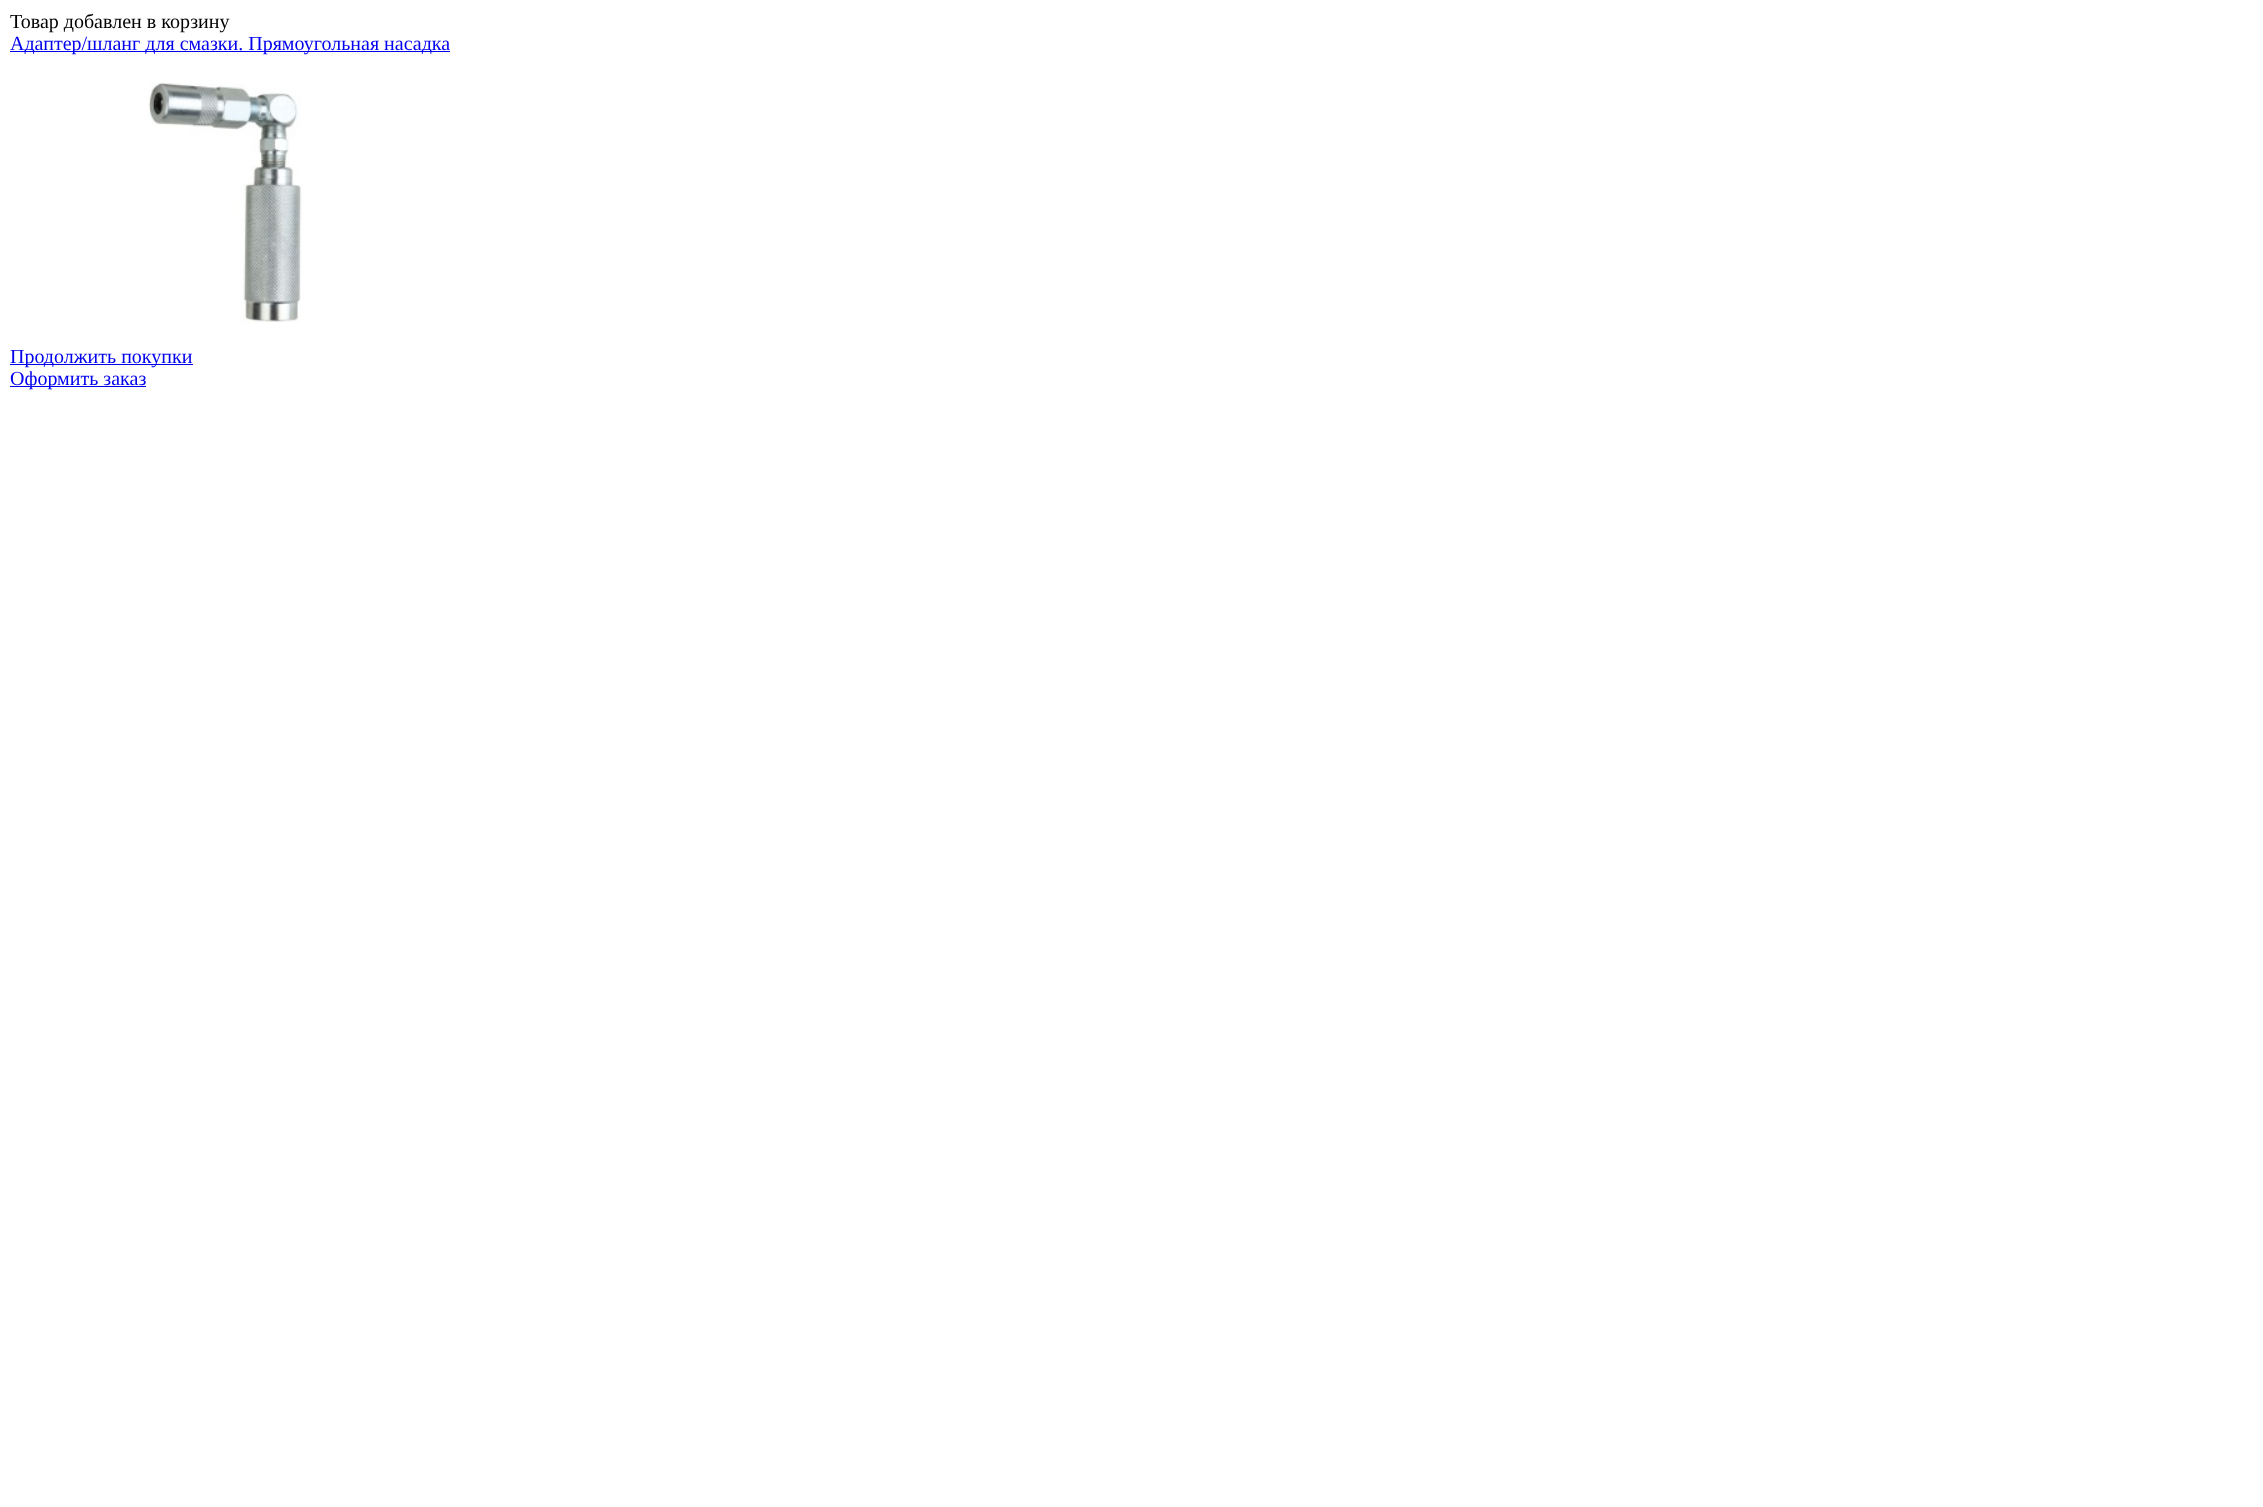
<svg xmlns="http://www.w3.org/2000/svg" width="2263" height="1507">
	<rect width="100%" height="100%" fill="#FFFFFF" />
	<text x="10" y="28" font-family="Liberation Serif" font-size="20" fill="#000000">Товар добавлен в корзину</text>
	<rect x="10" y="51" width="440" height="1" fill="#0000EE" />
	<text x="10" y="50" font-family="Liberation Serif" font-size="20" fill="#0000EE">Адаптер/шланг для смазки. Прямоугольная насадка</text>
	<image x="148" y="82" width="154" height="241" href="assets/img1.png" />
	<rect x="10" y="364" width="183" height="1" fill="#0000EE" />
	<text x="10" y="363" font-family="Liberation Serif" font-size="20" fill="#0000EE">Продолжить покупки</text>
	<rect x="10" y="386" width="136" height="1" fill="#0000EE" />
	<text x="10" y="385" font-family="Liberation Serif" font-size="20" fill="#0000EE">Оформить заказ</text>
</svg>
